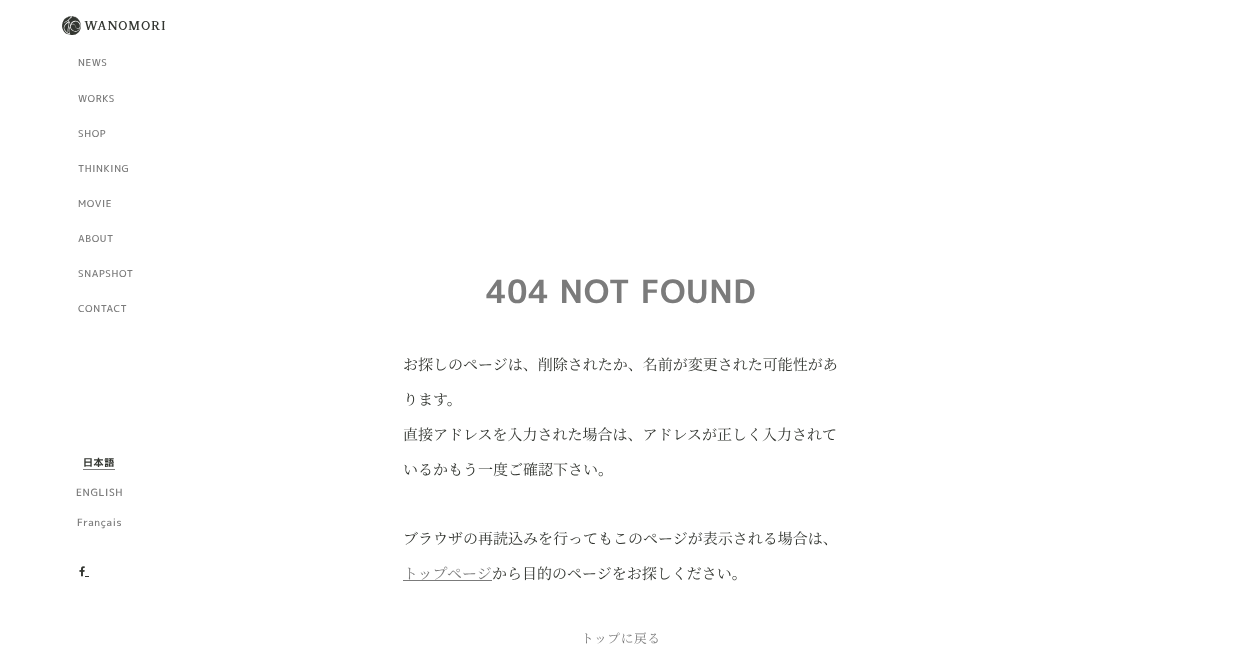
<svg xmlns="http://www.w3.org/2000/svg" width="1242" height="666">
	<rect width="100%" height="100%" fill="#FFFFFF" />
	<image x="62" y="16" width="103" height="19" href="assets/img1.png" />
	<g font-family="'M PLUS 1p'" font-size="9.5" font-weight="500" letter-spacing="0.6" fill="#7B7B7B">
		<text x="78" y="66">NEWS</text>
		<text x="78" y="102">WORKS</text>
		<text x="78" y="137">SHOP</text>
		<text x="78" y="172">THINKING</text>
		<text x="78" y="207">MOVIE</text>
		<text x="78" y="242">ABOUT</text>
		<text x="78" y="277">SNAPSHOT</text>
		<text x="78" y="312">CONTACT</text>
	</g>
	<text x="83" y="466" font-family="'M PLUS 1p'" font-size="10" font-weight="700" letter-spacing="0.6" fill="#333631">日本語</text>
	<rect x="83" y="469" width="32" height="1" fill="#7B7B7B" />
	<g font-family="'M PLUS 1p'" font-size="10" font-weight="500" letter-spacing="0.6" fill="#7B7B7B">
		<text x="76" y="496">ENGLISH</text>
		<text x="77" y="526">Français</text>
	</g>
	<image x="79" y="566" width="6" height="11" href="assets/img2.png" />
	<rect x="85" y="576" width="4" height="1" fill="#333631" />
	<text x="486" y="303" font-family="'M PLUS 1p'" font-size="32" font-weight="700" letter-spacing="0.6" fill="#7B7B7B">404 NOT FOUND</text>
	<g font-family="Noto Serif JP" font-size="15" fill="#333631">
		<text x="403" y="370">お探しのページは、削除されたか、名前が変更された可能性があ</text>
		<text x="403" y="405">ります。</text>
		<text x="403" y="440">直接アドレスを入力された場合は、アドレスが正しく入力されて</text>
		<text x="403" y="475">いるかもう一度ご確認下さい。</text>
		<text x="403" y="544">ブラウザの再読込みを行ってもこのページが表示される場合は、</text>
	</g>
	<text x="403" y="579" font-family="Noto Serif JP" font-size="15" fill="#7B7B7B">トップページ</text>
	<rect x="403" y="580" width="89" height="1" fill="#7B7B7B" />
	<text x="492" y="579" font-family="Noto Serif JP" font-size="15" fill="#333631">から目的のページをお探しください。</text>
	<text x="581" y="643" font-family="Noto Serif JP" font-size="12.75" letter-spacing="0.6" fill="#7B7B7B">トップに戻る</text>
</svg>
